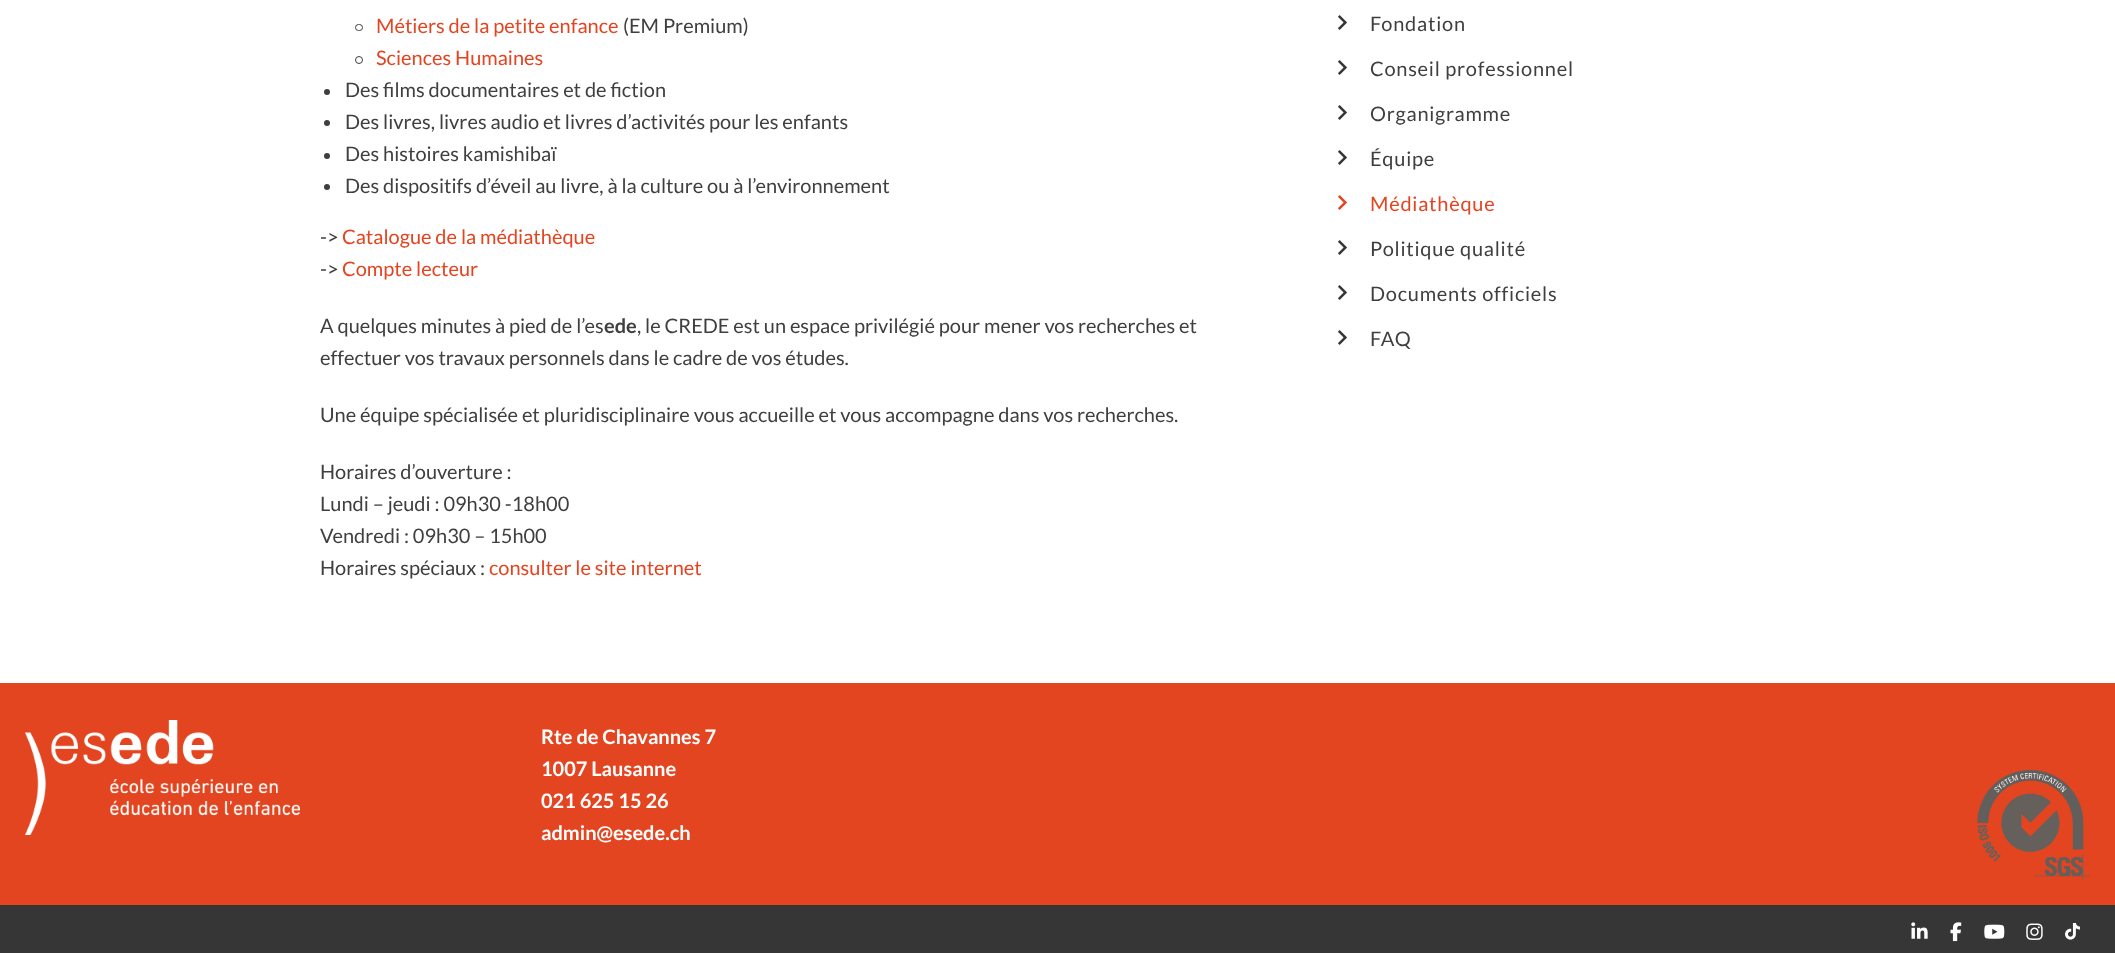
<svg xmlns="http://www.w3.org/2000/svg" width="2115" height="953">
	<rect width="100%" height="100%" fill="#FFFFFF" />
	<rect x="355.5" y="24.5" width="7" height="6" rx="3" fill="none" stroke="#3F3F3F" />
	<text x="376" y="33" font-family="Lato" font-size="20" fill="#E34521">Métiers de la petite enfance</text>
	<text x="623" y="33" font-family="Lato" font-size="20" fill="#3F3F3F">(EM Premium)</text>
	<circle cx="359" cy="60" r="3.5" fill="none" stroke="#3F3F3F" />
	<text x="376" y="65" font-family="Lato" font-size="20" fill="#E34521">Sciences Humaines</text>
	<circle cx="327" cy="92" r="3" fill="#3F3F3F" />
	<text x="345" y="97" font-family="Lato" font-size="20" fill="#3F3F3F">Des films documentaires et de fiction</text>
	<circle cx="327" cy="123" r="3" fill="#3F3F3F" />
	<text x="345" y="129" font-family="Lato" font-size="20" fill="#3F3F3F">Des livres, livres audio et livres d’activités pour les enfants</text>
	<circle cx="327" cy="156" r="3" fill="#3F3F3F" />
	<text x="345" y="161" font-family="Lato" font-size="20" fill="#3F3F3F">Des histoires kamishibaï</text>
	<circle cx="327" cy="187" r="3" fill="#3F3F3F" />
	<g font-family="Lato" font-size="20" fill="#3F3F3F">
		<text x="345" y="193">Des dispositifs d’éveil au livre, à la culture ou à l’environnement</text>
		<text x="320" y="244">-&gt;</text>
	</g>
	<text x="342" y="244" font-family="Lato" font-size="20" fill="#E34521">Catalogue de la médiathèque</text>
	<text x="320" y="276" font-family="Lato" font-size="20" fill="#3F3F3F">-&gt;</text>
	<text x="342" y="276" font-family="Lato" font-size="20" fill="#E34521">Compte lecteur</text>
	<text x="320" y="333" font-family="Lato" font-size="20" fill="#3F3F3F">A quelques minutes à pied de l’es</text>
	<text x="604" y="333" font-family="Lato" font-size="20" font-weight="700" fill="#3F3F3F">ede</text>
	<g font-family="Lato" font-size="20" fill="#3F3F3F">
		<text x="637" y="333">, le CREDE est un espace privilégié pour mener vos recherches et</text>
		<text x="320" y="365">effectuer vos travaux personnels dans le cadre de vos études.</text>
		<text x="320" y="422">Une équipe spécialisée et pluridisciplinaire vous accueille et vous accompagne dans vos recherches.</text>
		<text x="320" y="479">Horaires d’ouverture :</text>
		<text x="320" y="511">Lundi – jeudi : 09h30 -18h00</text>
		<text x="320" y="543">Vendredi : 09h30 – 15h00</text>
		<text x="320" y="575">Horaires spéciaux :</text>
	</g>
	<text x="489" y="575" font-family="Lato" font-size="20" fill="#E34521">consulter le site internet</text>
	<image x="1338" y="15" width="9" height="15" href="assets/img1.png" />
	<text x="1370" y="31" font-family="Lato" font-size="20" letter-spacing="0.75" fill="#3F3F3F">Fondation</text>
	<image x="1338" y="60" width="9" height="15" href="assets/img1.png" />
	<text x="1370" y="76" font-family="Lato" font-size="20" letter-spacing="0.75" fill="#3F3F3F">Conseil professionnel</text>
	<image x="1338" y="105" width="9" height="15" href="assets/img1.png" />
	<text x="1370" y="121" font-family="Lato" font-size="20" letter-spacing="0.75" fill="#3F3F3F">Organigramme</text>
	<image x="1338" y="150" width="9" height="15" href="assets/img1.png" />
	<text x="1370" y="166" font-family="Lato" font-size="20" letter-spacing="0.75" fill="#3F3F3F">Équipe</text>
	<image x="1338" y="195" width="9" height="15" href="assets/img2.png" />
	<text x="1370" y="211" font-family="Lato" font-size="20" letter-spacing="0.75" fill="#E34521">Médiathèque</text>
	<image x="1338" y="240" width="9" height="15" href="assets/img1.png" />
	<text x="1370" y="256" font-family="Lato" font-size="20" letter-spacing="0.75" fill="#3F3F3F">Politique qualité</text>
	<image x="1338" y="285" width="9" height="15" href="assets/img1.png" />
	<text x="1370" y="301" font-family="Lato" font-size="20" letter-spacing="0.75" fill="#3F3F3F">Documents officiels</text>
	<image x="1338" y="330" width="9" height="15" href="assets/img1.png" />
	<text x="1370" y="346" font-family="Lato" font-size="20" letter-spacing="0.75" fill="#3F3F3F">FAQ</text>
	<rect x="0" y="683" width="2115" height="222" fill="#E34520" />
	<image x="25" y="720" width="275" height="115" href="assets/img3.png" />
	<g font-family="Lato" font-size="20" font-weight="700" fill="#FFFFFF">
		<text x="541" y="744">Rte de Chavannes 7</text>
		<text x="541" y="776">1007 Lausanne</text>
		<text x="541" y="808">021 625 15 26</text>
		<text x="541" y="840">admin@esede.ch</text>
	</g>
	<image x="1977" y="770" width="113" height="110" href="assets/img4.png" />
	<rect x="0" y="905" width="2115" height="48" fill="#363636" />
	<image x="1911" y="922" width="17" height="17" href="assets/img5.png" />
	<image x="1950" y="922" width="12" height="20" href="assets/img6.png" />
	<image x="1984" y="924" width="21" height="15" href="assets/img7.png" />
	<image x="2026" y="923" width="17" height="17" href="assets/img8.png" />
	<image x="2065" y="923" width="15" height="17" href="assets/img9.png" />
</svg>
